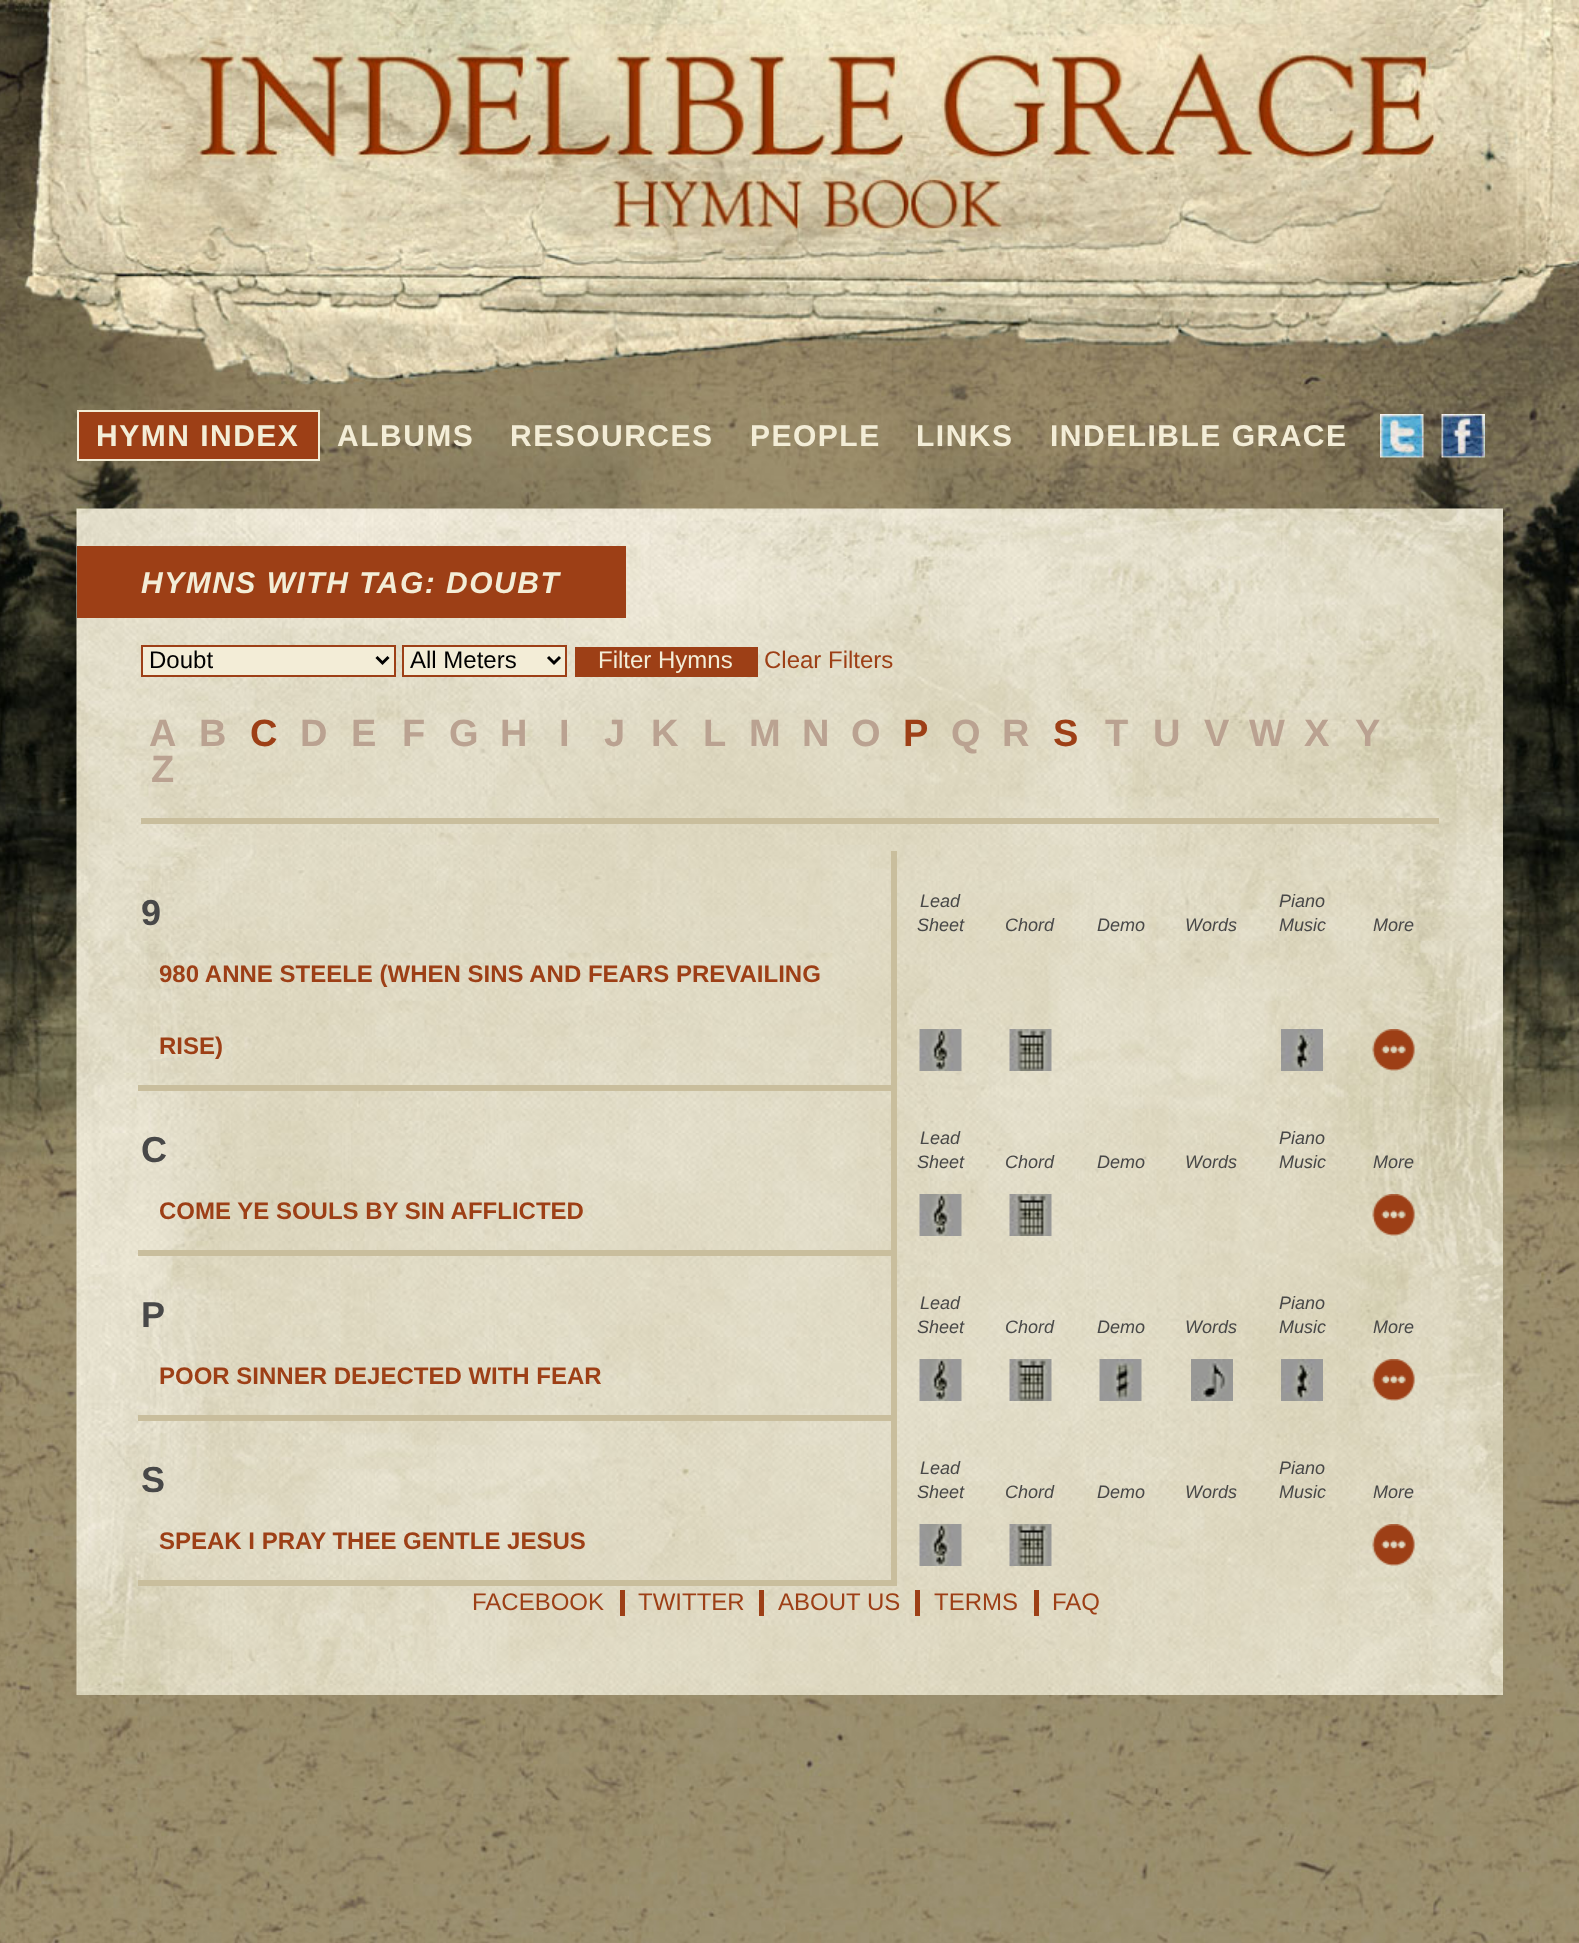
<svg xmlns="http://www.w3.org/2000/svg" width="1579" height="1943">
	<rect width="100%" height="100%" fill="#FFFFFF" />
	<image x="0" y="0" width="1579" height="1943" href="assets/img1.png" />
	<rect x="78" y="411" width="241" height="49" fill="#9D3F16" stroke="#F3EDD7" stroke-width="2" />
	<g font-family="Liberation Sans" font-size="30" font-weight="700" letter-spacing="1.5" fill="#F3EDD7">
		<text x="96" y="446">HYMN INDEX</text>
		<text x="337" y="446">ALBUMS</text>
		<text x="510" y="446">RESOURCES</text>
		<text x="750" y="446">PEOPLE</text>
		<text x="916" y="446">LINKS</text>
		<text x="1050" y="446">INDELIBLE GRACE</text>
	</g>
	<image x="1380" y="414" width="44" height="44" href="assets/img2.png" />
	<image x="1441" y="414" width="44" height="44" href="assets/img3.png" />
	<image x="76" y="508" width="1427" height="1187" href="assets/img4.png" />
	<rect x="77" y="546" width="549" height="72" fill="#9D3F16" />
	<text x="141" y="593" font-family="Liberation Sans" font-size="30" font-weight="700" font-style="italic" letter-spacing="1.5" fill="#F3EDD7">HYMNS WITH TAG: DOUBT</text>
	<rect x="142" y="646" width="253" height="30" fill="#F3EDD7" stroke="#9D3F16" stroke-width="2" />
	<path d="M376.5 657L382.5 663L388.5 657" fill="none" stroke="#000000" stroke-width="3" />
	<text x="149" y="668" font-family="Liberation Sans" font-size="24" fill="#000000">Doubt</text>
	<rect x="403" y="646" width="163" height="30" fill="#F3EDD7" stroke="#9D3F16" stroke-width="2" />
	<path d="M548 657L554 663L560 657" fill="none" stroke="#000000" stroke-width="3" />
	<text x="410" y="668" font-family="Liberation Sans" font-size="24" fill="#000000">All Meters</text>
	<rect x="575" y="647" width="183" height="30" fill="#9D3F16" />
	<text x="598" y="668" font-family="Liberation Sans" font-size="24" fill="#F3EDD7">Filter Hymns</text>
	<text x="764" y="668" font-family="Liberation Sans" font-size="24" fill="#9D3F16">Clear Filters</text>
	<rect x="141" y="818" width="1298" height="6" fill="#C9BE9D" />
	<g font-family="Liberation Sans" font-size="38" font-weight="700" fill="#BAA291">
		<text x="149" y="746">A</text>
		<text x="199" y="746">B</text>
	</g>
	<text x="250" y="746" font-family="Liberation Sans" font-size="38" font-weight="700" fill="#9D3F16">C</text>
	<g font-family="Liberation Sans" font-size="38" font-weight="700" fill="#BAA291">
		<text x="300" y="746">D</text>
		<text x="351" y="746">E</text>
		<text x="402" y="746">F</text>
		<text x="449" y="746">G</text>
		<text x="500" y="746">H</text>
		<text x="559" y="746">I</text>
		<text x="604" y="746">J</text>
		<text x="651" y="746">K</text>
		<text x="703" y="746">L</text>
		<text x="749" y="746">M</text>
		<text x="802" y="746">N</text>
		<text x="851" y="746">O</text>
	</g>
	<text x="903" y="746" font-family="Liberation Sans" font-size="38" font-weight="700" fill="#9D3F16">P</text>
	<g font-family="Liberation Sans" font-size="38" font-weight="700" fill="#BAA291">
		<text x="951" y="746">Q</text>
		<text x="1002" y="746">R</text>
	</g>
	<text x="1053" y="746" font-family="Liberation Sans" font-size="38" font-weight="700" fill="#9D3F16">S</text>
	<g font-family="Liberation Sans" font-size="38" font-weight="700" fill="#BAA291">
		<text x="1105" y="746">T</text>
		<text x="1153" y="746">U</text>
		<text x="1204" y="746">V</text>
		<text x="1249" y="746">W</text>
		<text x="1304" y="746">X</text>
		<text x="1355" y="746">Y</text>
		<text x="151" y="782">Z</text>
	</g>
	<text x="141" y="925" font-family="Liberation Sans" font-size="36" font-weight="700" fill="#484848">9</text>
	<g font-family="Liberation Sans" font-size="18" font-style="italic" fill="#484848">
		<text x="920" y="907">Lead</text>
		<text x="917" y="931">Sheet</text>
		<text x="1005" y="931">Chord</text>
		<text x="1097" y="931">Demo</text>
		<text x="1185" y="931">Words</text>
		<text x="1279" y="907">Piano</text>
		<text x="1279" y="931">Music</text>
		<text x="1373" y="931">More</text>
	</g>
	<rect x="891" y="851" width="6" height="240" fill="#C9BE9D" />
	<rect x="138" y="1085" width="759" height="6" fill="#C9BE9D" />
	<g font-family="Liberation Sans" font-size="24" font-weight="700" fill="#9D3F16">
		<text x="159" y="982">980 ANNE STEELE (WHEN SINS AND FEARS PREVAILING</text>
		<text x="159" y="1054">RISE)</text>
	</g>
	<image x="919" y="1029" width="43" height="42" href="assets/img5.png" />
	<image x="1009" y="1029" width="43" height="42" href="assets/img6.png" />
	<image x="1281" y="1029" width="42" height="42" href="assets/img7.png" />
	<image x="1372" y="1029" width="43" height="42" href="assets/img8.png" />
	<text x="141" y="1162" font-family="Liberation Sans" font-size="36" font-weight="700" fill="#484848">C</text>
	<g font-family="Liberation Sans" font-size="18" font-style="italic" fill="#484848">
		<text x="920" y="1144">Lead</text>
		<text x="917" y="1168">Sheet</text>
		<text x="1005" y="1168">Chord</text>
		<text x="1097" y="1168">Demo</text>
		<text x="1185" y="1168">Words</text>
		<text x="1279" y="1144">Piano</text>
		<text x="1279" y="1168">Music</text>
		<text x="1373" y="1168">More</text>
	</g>
	<rect x="891" y="1088" width="6" height="168" fill="#C9BE9D" />
	<rect x="138" y="1250" width="759" height="6" fill="#C9BE9D" />
	<text x="159" y="1219" font-family="Liberation Sans" font-size="24" font-weight="700" fill="#9D3F16">COME YE SOULS BY SIN AFFLICTED</text>
	<image x="919" y="1194" width="43" height="42" href="assets/img9.png" />
	<image x="1009" y="1194" width="43" height="42" href="assets/img10.png" />
	<image x="1372" y="1194" width="43" height="42" href="assets/img11.png" />
	<text x="141" y="1327" font-family="Liberation Sans" font-size="36" font-weight="700" fill="#484848">P</text>
	<g font-family="Liberation Sans" font-size="18" font-style="italic" fill="#484848">
		<text x="920" y="1309">Lead</text>
		<text x="917" y="1333">Sheet</text>
		<text x="1005" y="1333">Chord</text>
		<text x="1097" y="1333">Demo</text>
		<text x="1185" y="1333">Words</text>
		<text x="1279" y="1309">Piano</text>
		<text x="1279" y="1333">Music</text>
		<text x="1373" y="1333">More</text>
	</g>
	<rect x="891" y="1253" width="6" height="168" fill="#C9BE9D" />
	<rect x="138" y="1415" width="759" height="6" fill="#C9BE9D" />
	<text x="159" y="1384" font-family="Liberation Sans" font-size="24" font-weight="700" fill="#9D3F16">POOR SINNER DEJECTED WITH FEAR</text>
	<image x="919" y="1359" width="43" height="42" href="assets/img12.png" />
	<image x="1009" y="1359" width="43" height="42" href="assets/img13.png" />
	<image x="1099" y="1359" width="43" height="42" href="assets/img14.png" />
	<image x="1191" y="1359" width="42" height="42" href="assets/img15.png" />
	<image x="1281" y="1359" width="42" height="42" href="assets/img7.png" />
	<image x="1372" y="1359" width="43" height="42" href="assets/img16.png" />
	<text x="141" y="1492" font-family="Liberation Sans" font-size="36" font-weight="700" fill="#484848">S</text>
	<g font-family="Liberation Sans" font-size="18" font-style="italic" fill="#484848">
		<text x="920" y="1474">Lead</text>
		<text x="917" y="1498">Sheet</text>
		<text x="1005" y="1498">Chord</text>
		<text x="1097" y="1498">Demo</text>
		<text x="1185" y="1498">Words</text>
		<text x="1279" y="1474">Piano</text>
		<text x="1279" y="1498">Music</text>
		<text x="1373" y="1498">More</text>
	</g>
	<rect x="891" y="1418" width="6" height="168" fill="#C9BE9D" />
	<rect x="138" y="1580" width="759" height="6" fill="#C9BE9D" />
	<text x="159" y="1549" font-family="Liberation Sans" font-size="24" font-weight="700" fill="#9D3F16">SPEAK I PRAY THEE GENTLE JESUS</text>
	<image x="919" y="1524" width="43" height="42" href="assets/img17.png" />
	<image x="1009" y="1524" width="43" height="42" href="assets/img18.png" />
	<image x="1372" y="1524" width="43" height="42" href="assets/img19.png" />
	<text x="472" y="1610" font-family="Liberation Sans" font-size="24" fill="#9D3F16">FACEBOOK</text>
	<rect x="620" y="1590" width="5" height="26" fill="#9D3F16" />
	<text x="638" y="1610" font-family="Liberation Sans" font-size="24" fill="#9D3F16">TWITTER</text>
	<rect x="759" y="1590" width="5" height="26" fill="#9D3F16" />
	<text x="778" y="1610" font-family="Liberation Sans" font-size="24" fill="#9D3F16">ABOUT US</text>
	<rect x="915" y="1590" width="5" height="26" fill="#9D3F16" />
	<text x="934" y="1610" font-family="Liberation Sans" font-size="24" fill="#9D3F16">TERMS</text>
	<rect x="1034" y="1590" width="5" height="26" fill="#9D3F16" />
	<text x="1052" y="1610" font-family="Liberation Sans" font-size="24" fill="#9D3F16">FAQ</text>
</svg>
